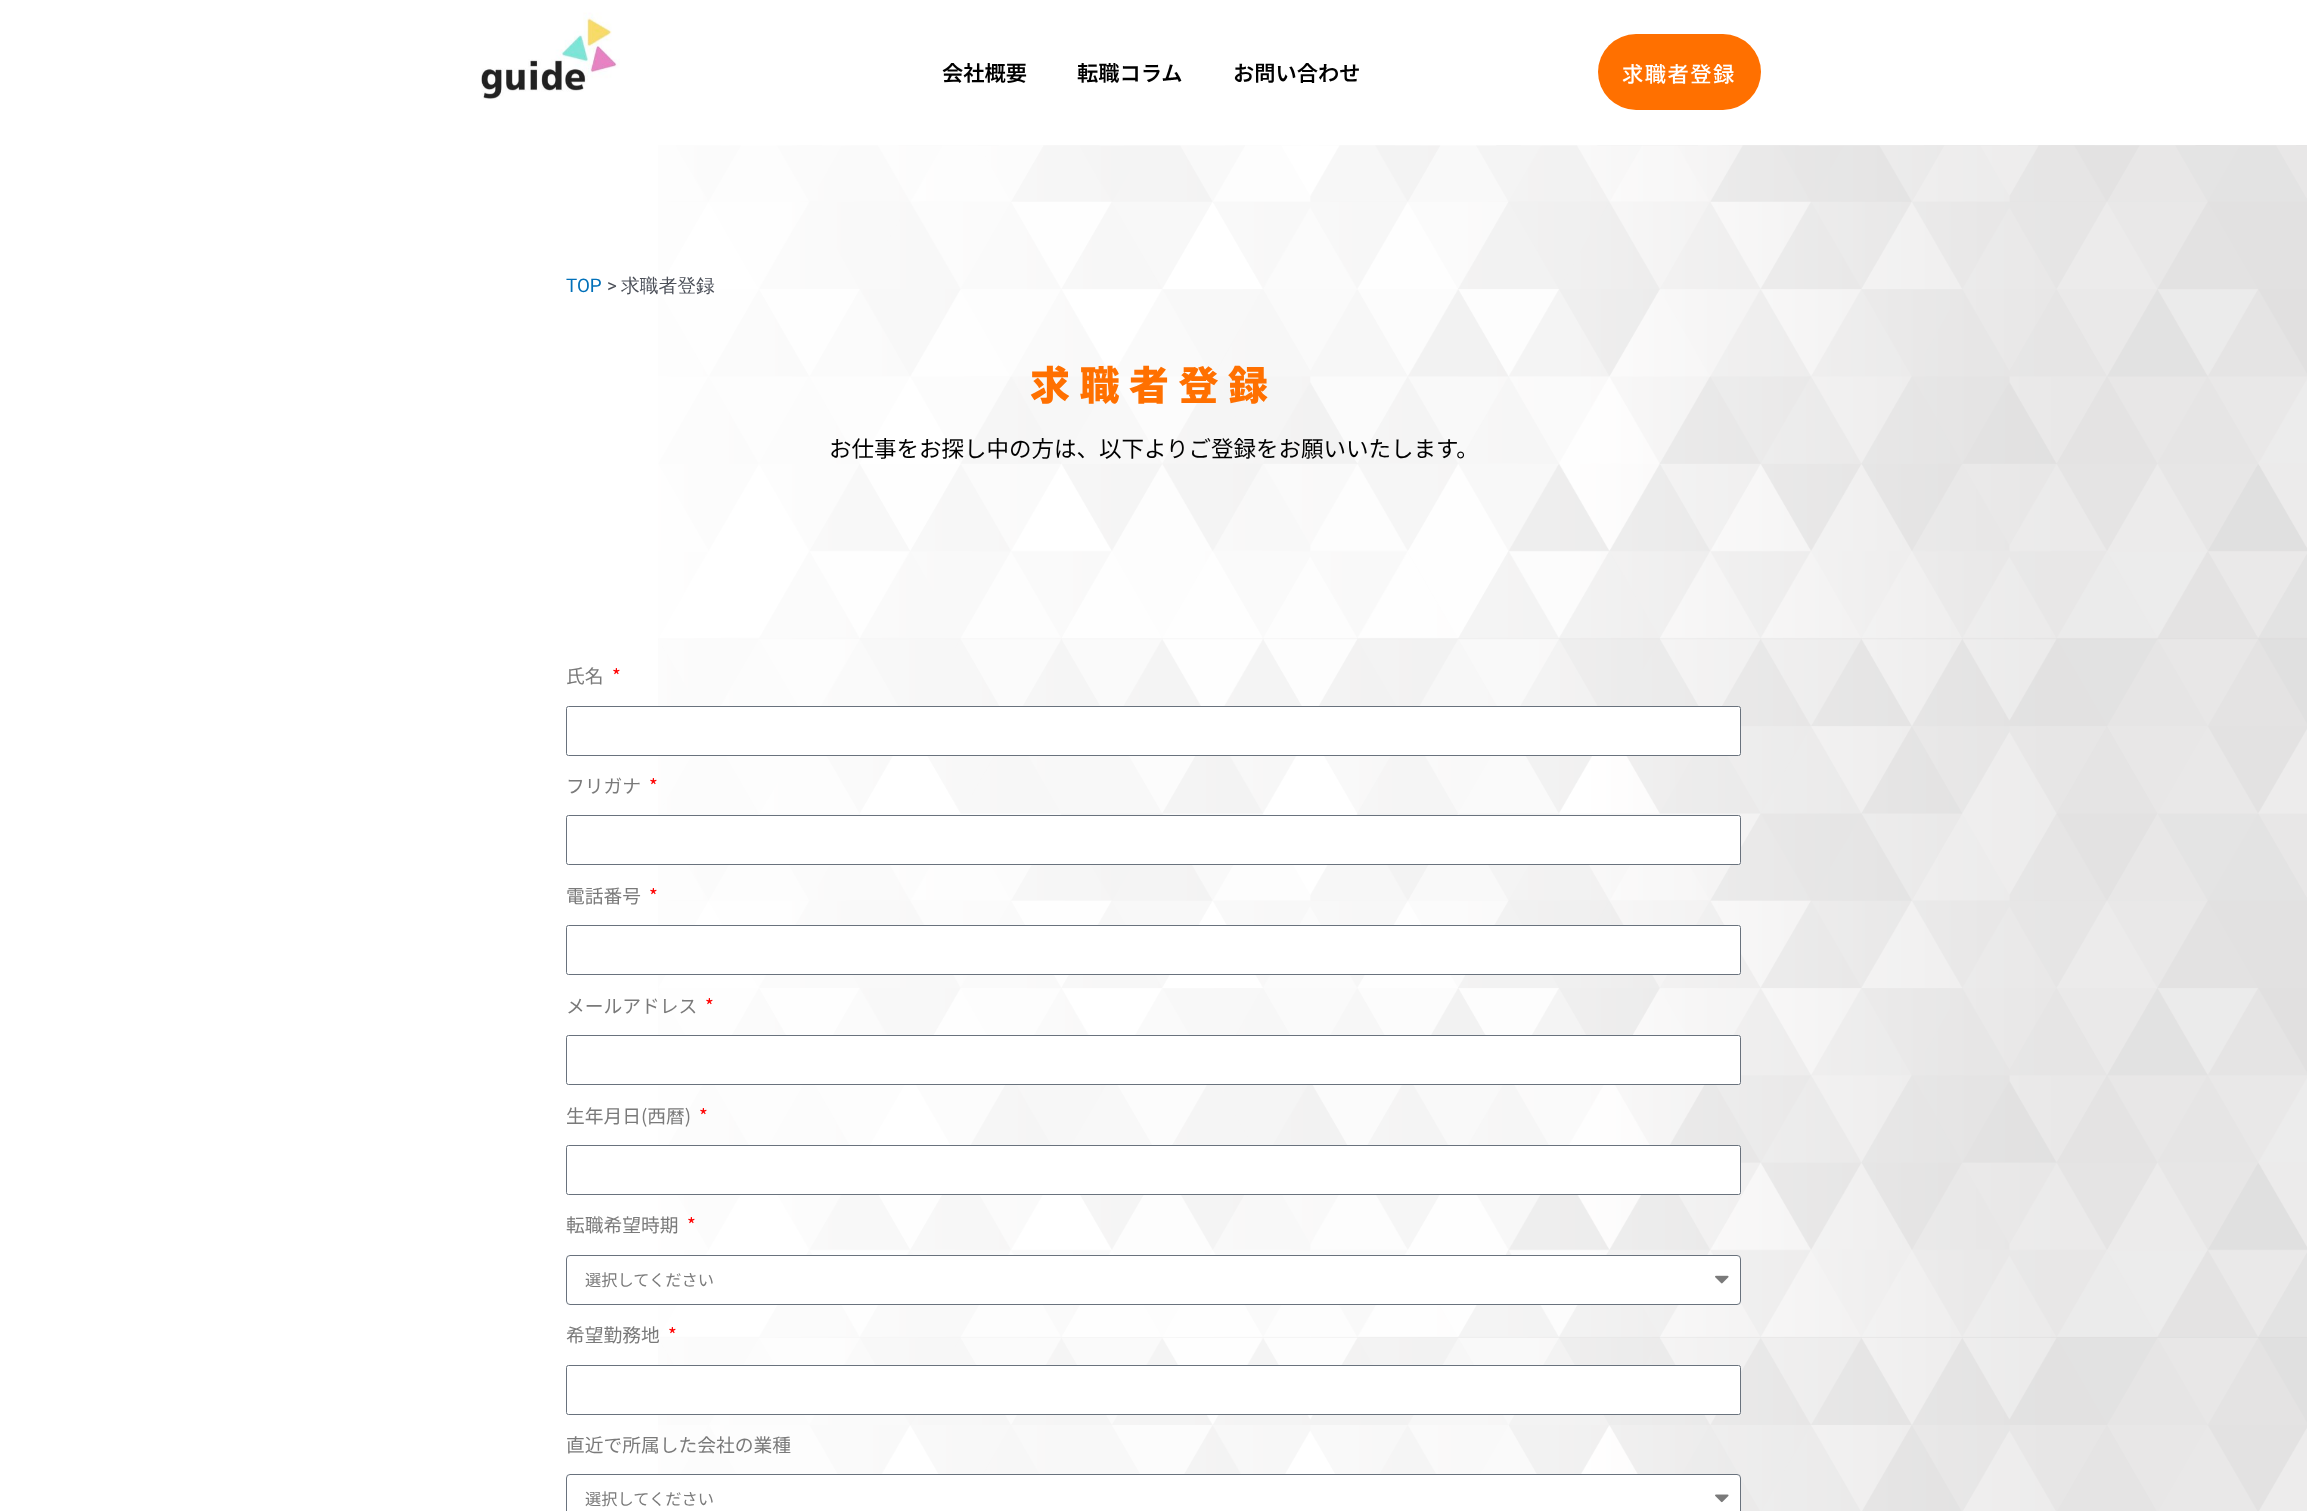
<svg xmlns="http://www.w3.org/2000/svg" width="2307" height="1511">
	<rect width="100%" height="100%" fill="#FFFFFF" />
	<image x="481" y="12" width="139" height="88" href="assets/img1.png" />
	<g font-family="Noto Sans JP" font-size="21.25" font-weight="600" fill="#000000">
		<text x="942" y="81">会社概要</text>
		<text x="1077" y="81">転職コラム</text>
		<text x="1233" y="81">お問い合わせ</text>
	</g>
	<rect x="1598" y="34" width="163" height="76" rx="38" fill="#FF7000" />
	<text x="1622" y="82" font-family="Noto Sans JP" font-size="21.25" font-weight="500" letter-spacing="1.5" fill="#FFFFFF">求職者登録</text>
	<image x="658" y="145" width="1649" height="1366" href="assets/img2.png" />
	<text x="566" y="292" font-family="Roboto" font-size="18.75" fill="#0170B9">TOP</text>
	<text x="607" y="292" font-family="Roboto" font-size="18.75" fill="#4B4F58">&gt;</text>
	<text x="621" y="292" font-family="WenQuanYi Zen Hei" font-size="18.75" font-weight="500" fill="#4B4F58">求職者登録</text>
	<text x="1030" y="400" font-family="Noto Sans JP" font-size="40" font-weight="900" letter-spacing="9.5" fill="#FF7000">求職者登録</text>
	<text x="829" y="457" font-family="Noto Sans JP" font-size="22.5" fill="#000000">お仕事をお探し中の方は、以下よりご登録をお願いいたします。</text>
	<text x="566" y="683" font-family="Noto Sans JP" font-size="18.75" fill="#7A7A7A">氏名</text>
	<text x="612" y="683" font-family="Noto Sans JP" font-size="18.75" fill="#FF0000">*</text>
	<rect x="566.5" y="706.5" width="1174" height="49" rx="2" fill="#FFFFFF" stroke="#69727D" />
	<text x="566" y="793" font-family="Noto Sans JP" font-size="18.75" fill="#7A7A7A">フリガナ</text>
	<text x="649" y="793" font-family="Noto Sans JP" font-size="18.75" fill="#FF0000">*</text>
	<rect x="566.5" y="815.5" width="1174" height="49" rx="2" fill="#FFFFFF" stroke="#69727D" />
	<text x="566" y="903" font-family="Noto Sans JP" font-size="18.75" fill="#7A7A7A">電話番号</text>
	<text x="649" y="903" font-family="Noto Sans JP" font-size="18.75" fill="#FF0000">*</text>
	<rect x="566.5" y="925.5" width="1174" height="49" rx="2" fill="#FFFFFF" stroke="#69727D" />
	<text x="566" y="1013" font-family="Noto Sans JP" font-size="18.75" fill="#7A7A7A">メールアドレス</text>
	<text x="705" y="1013" font-family="Noto Sans JP" font-size="18.75" fill="#FF0000">*</text>
	<rect x="566.5" y="1035.5" width="1174" height="49" rx="2" fill="#FFFFFF" stroke="#69727D" />
	<text x="566" y="1123" font-family="Noto Sans JP" font-size="18.75" fill="#7A7A7A">生年月日(西暦)</text>
	<text x="699" y="1123" font-family="Noto Sans JP" font-size="18.75" fill="#FF0000">*</text>
	<rect x="566.5" y="1145.5" width="1174" height="49" rx="2" fill="#FFFFFF" stroke="#69727D" />
	<text x="566" y="1232" font-family="Noto Sans JP" font-size="18.75" fill="#7A7A7A">転職希望時期</text>
	<text x="687" y="1232" font-family="Noto Sans JP" font-size="18.75" fill="#FF0000">*</text>
	<rect x="566.5" y="1255.5" width="1174" height="49" rx="3.5" fill="#FFFFFF" stroke="#69727D" />
	<text x="585" y="1286" font-family="Noto Sans JP" font-size="16.25" fill="#7A7A7A">選択してください</text>
	<image x="1715" y="1275" width="14" height="9" href="assets/img3.png" />
	<text x="566" y="1342" font-family="Noto Sans JP" font-size="18.75" fill="#7A7A7A">希望勤務地</text>
	<text x="668" y="1342" font-family="Noto Sans JP" font-size="18.75" fill="#FF0000">*</text>
	<rect x="566.5" y="1365.5" width="1174" height="49" rx="2" fill="#FFFFFF" stroke="#69727D" />
	<text x="566" y="1452" font-family="Noto Sans JP" font-size="18.75" fill="#7A7A7A">直近で所属した会社の業種</text>
	<rect x="566.5" y="1474.5" width="1174" height="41" rx="3.5" fill="#FFFFFF" stroke="#69727D" />
	<text x="585" y="1505" font-family="Noto Sans JP" font-size="16.25" fill="#7A7A7A">選択してください</text>
	<image x="1715" y="1494" width="14" height="9" href="assets/img4.png" />
</svg>
